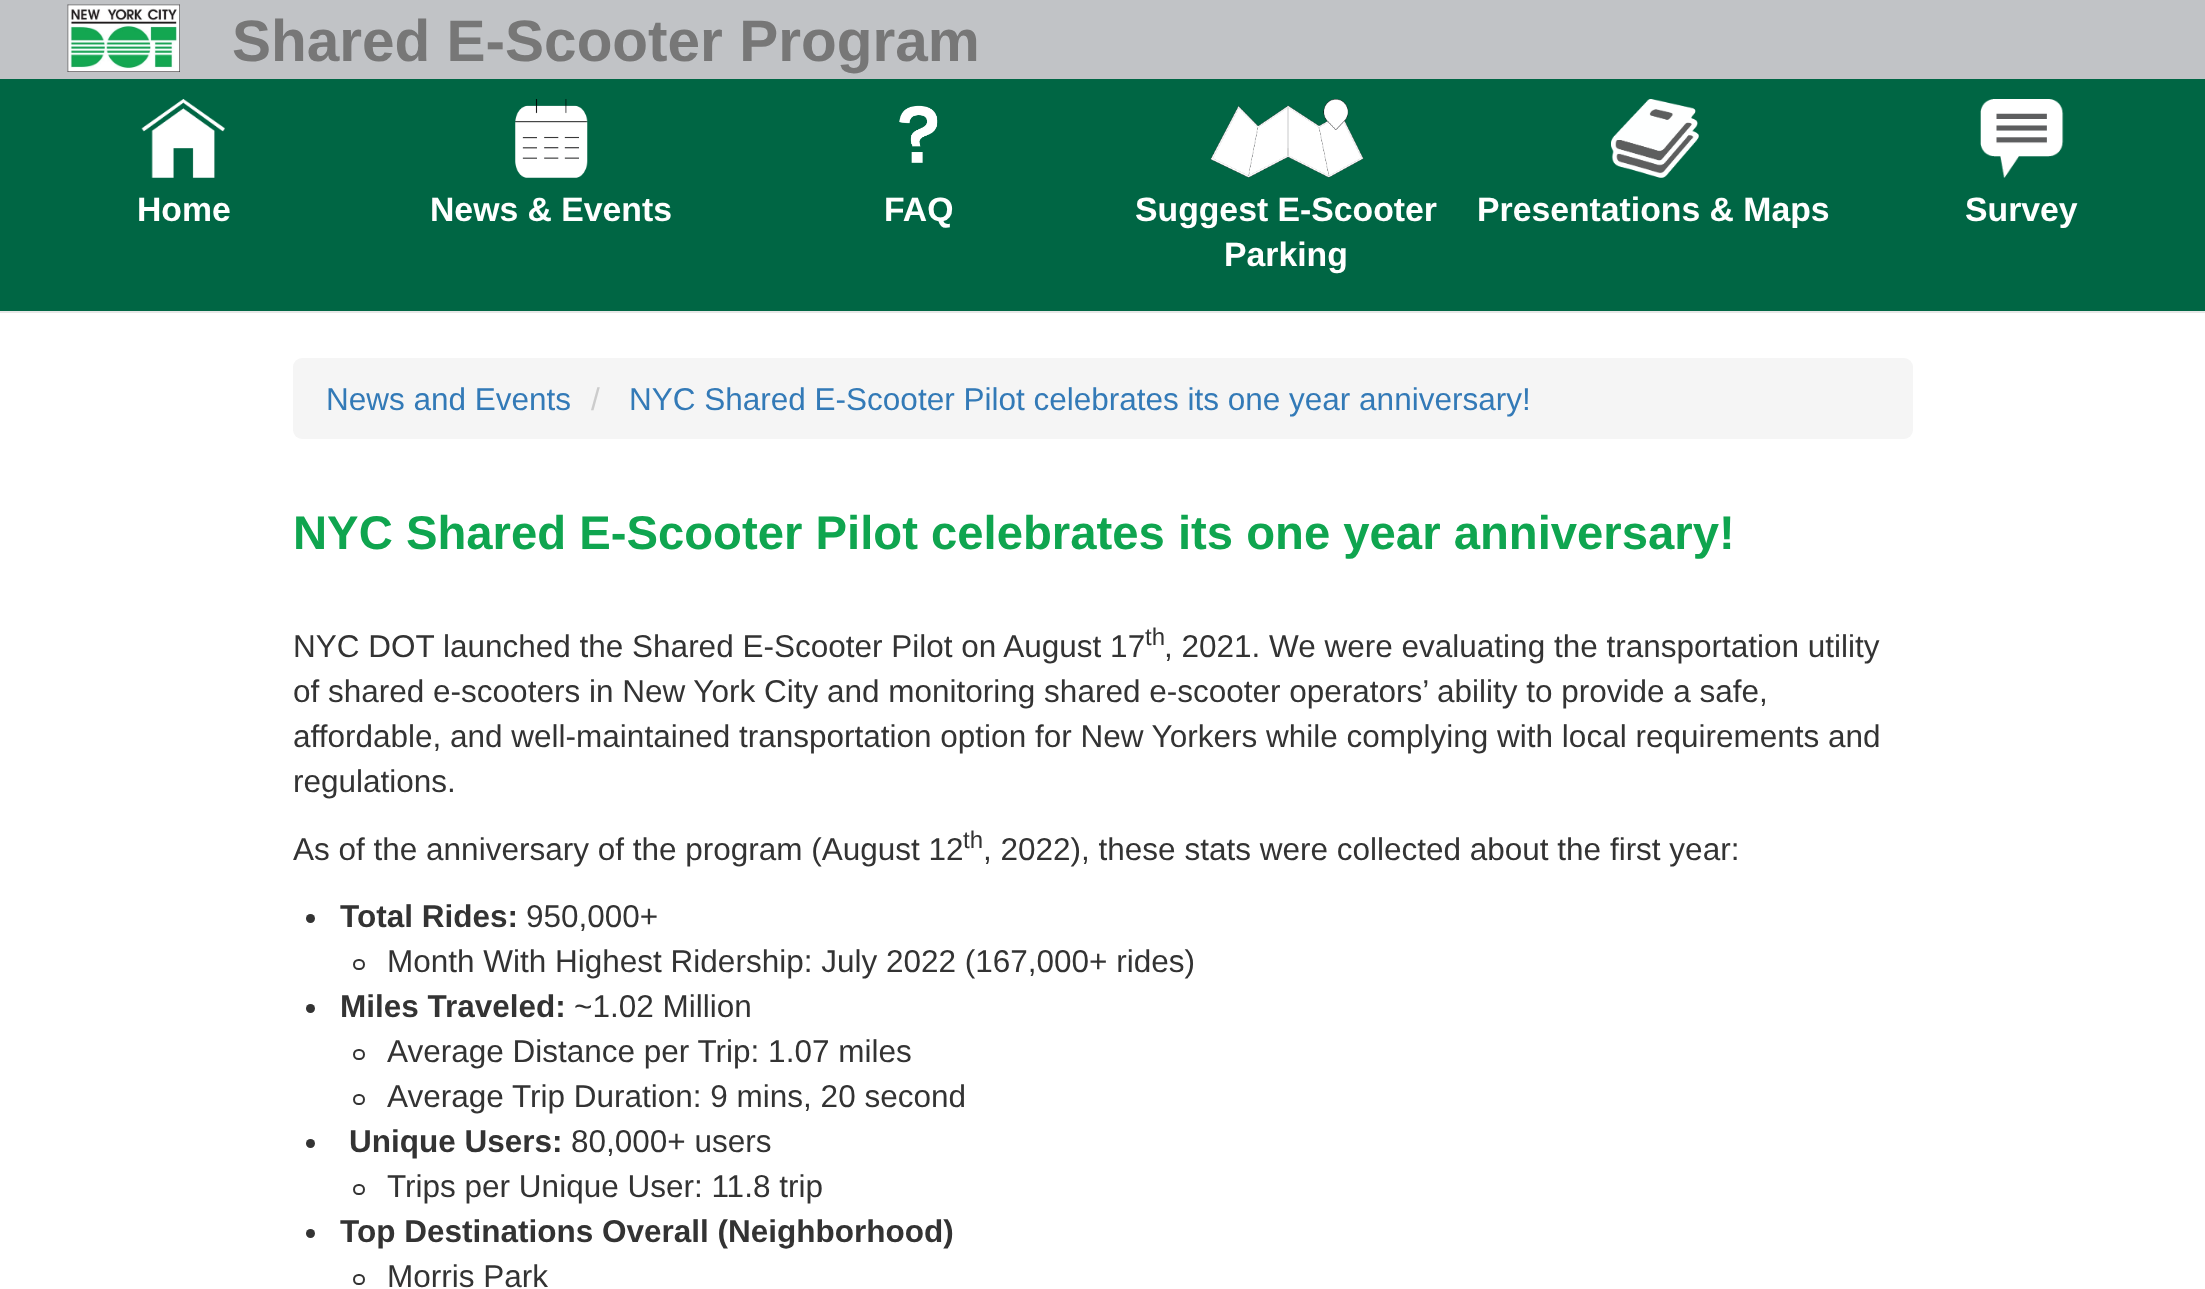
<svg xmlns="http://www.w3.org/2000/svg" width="2205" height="1289">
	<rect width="100%" height="100%" fill="#FFFFFF" />
	<rect x="0" y="311" width="2205" height="2" fill="#E7E7E7" />
	<rect x="0" y="0" width="2205" height="79" fill="#C1C3C6" />
	<image x="67" y="4" width="113" height="68" href="assets/img1.png" />
	<text x="232" y="61" font-family="Liberation Sans" font-size="58.5" font-weight="700" fill="#777777">Shared E-Scooter Program</text>
	<rect x="0" y="79" width="2205" height="232" fill="#006644" />
	<image x="141" y="99" width="84" height="79" href="assets/img2.png" />
	<text x="137" y="221" font-family="Liberation Sans" font-size="33.75" font-weight="700" fill="#FFFFFF">Home</text>
	<image x="515" y="99" width="73" height="79" href="assets/img3.png" />
	<text x="430" y="221" font-family="Liberation Sans" font-size="33.75" font-weight="700" fill="#FFFFFF">News &amp; Events</text>
	<image x="899" y="105" width="39" height="58" href="assets/img4.png" />
	<text x="884" y="221" font-family="Liberation Sans" font-size="33.75" font-weight="700" fill="#FFFFFF">FAQ</text>
	<image x="1210" y="99" width="154" height="79" href="assets/img5.png" />
	<g font-family="Liberation Sans" font-size="33.75" font-weight="700" fill="#FFFFFF">
		<text x="1135" y="221">Suggest E-Scooter</text>
		<text x="1224" y="266">Parking</text>
	</g>
	<image x="1611" y="99" width="88" height="79" href="assets/img6.png" />
	<text x="1477" y="221" font-family="Liberation Sans" font-size="33.75" font-weight="700" fill="#FFFFFF">Presentations &amp; Maps</text>
	<image x="1980" y="99" width="84" height="79" href="assets/img7.png" />
	<text x="1965" y="221" font-family="Liberation Sans" font-size="33.75" font-weight="700" fill="#FFFFFF">Survey</text>
	<rect x="293" y="358" width="1620" height="81" rx="9" fill="#F5F5F5" />
	<text x="326" y="410" font-family="Liberation Sans" font-size="31.5" fill="#337AB7">News and Events</text>
	<text x="591" y="410" font-family="Liberation Sans" font-size="31.5" fill="#CCCCCC">/</text>
	<text x="629" y="410" font-family="Liberation Sans" font-size="31.5" fill="#337AB7">NYC Shared E-Scooter Pilot celebrates its one year anniversary!</text>
	<text x="293" y="549" font-family="Liberation Sans" font-size="47.25" font-weight="700" fill="#0FA54F">NYC Shared E-Scooter Pilot celebrates its one year anniversary!</text>
	<text x="293" y="657" font-family="Liberation Sans" font-size="31.5" fill="#333333">NYC DOT launched the Shared E-Scooter Pilot on August 17</text>
	<text x="1145" y="645" font-family="Liberation Sans" font-size="24" fill="#333333">th</text>
	<g font-family="Liberation Sans" font-size="31.5" fill="#333333">
		<text x="1164" y="657">, 2021. We were evaluating the transportation utility</text>
		<text x="293" y="702">of shared e-scooters in New York City and monitoring shared e-scooter operators’ ability to provide a safe,</text>
		<text x="293" y="747">affordable, and well-maintained transportation option for New Yorkers while complying with local requirements and</text>
		<text x="293" y="792">regulations.</text>
		<text x="293" y="860">As of the anniversary of the program (August 12</text>
	</g>
	<text x="963" y="848" font-family="Liberation Sans" font-size="24" fill="#333333">th</text>
	<text x="983" y="860" font-family="Liberation Sans" font-size="31.5" fill="#333333">, 2022), these stats were collected about the first year:</text>
	<circle cx="310.5" cy="918.5" r="4.5" fill="#333333" />
	<text x="340" y="927" font-family="Liberation Sans" font-size="31.5" font-weight="700" fill="#333333">Total Rides:</text>
	<text x="526" y="927" font-family="Liberation Sans" font-size="31.5" fill="#333333">950,000+</text>
	<rect x="354" y="960" width="10" height="9" rx="4.5" fill="none" stroke="#333333" stroke-width="2" />
	<text x="387" y="972" font-family="Liberation Sans" font-size="31.5" fill="#333333">Month With Highest Ridership: July 2022 (167,000+ rides)</text>
	<circle cx="310.5" cy="1008.5" r="4.5" fill="#333333" />
	<text x="340" y="1017" font-family="Liberation Sans" font-size="31.5" font-weight="700" fill="#333333">Miles Traveled:</text>
	<text x="574" y="1017" font-family="Liberation Sans" font-size="31.5" fill="#333333">~1.02 Million</text>
	<rect x="354" y="1050" width="10" height="9" rx="4.5" fill="none" stroke="#333333" stroke-width="2" />
	<text x="387" y="1062" font-family="Liberation Sans" font-size="31.5" fill="#333333">Average Distance per Trip: 1.07 miles</text>
	<rect x="354" y="1095" width="10" height="9" rx="4.5" fill="none" stroke="#333333" stroke-width="2" />
	<text x="387" y="1107" font-family="Liberation Sans" font-size="31.5" fill="#333333">Average Trip Duration: 9 mins, 20 second</text>
	<circle cx="310.5" cy="1143.5" r="4.5" fill="#333333" />
	<text x="349" y="1152" font-family="Liberation Sans" font-size="31.5" font-weight="700" fill="#333333">Unique Users:</text>
	<text x="571" y="1152" font-family="Liberation Sans" font-size="31.5" fill="#333333">80,000+ users</text>
	<rect x="354" y="1185" width="10" height="9" rx="4.5" fill="none" stroke="#333333" stroke-width="2" />
	<text x="387" y="1197" font-family="Liberation Sans" font-size="31.5" fill="#333333">Trips per Unique User: 11.8 trip</text>
	<circle cx="310.5" cy="1233.5" r="4.5" fill="#333333" />
	<text x="340" y="1242" font-family="Liberation Sans" font-size="31.5" font-weight="700" fill="#333333">Top Destinations Overall (Neighborhood)</text>
	<rect x="354" y="1275" width="10" height="9" rx="4.5" fill="none" stroke="#333333" stroke-width="2" />
	<text x="387" y="1287" font-family="Liberation Sans" font-size="31.5" fill="#333333">Morris Park</text>
</svg>
